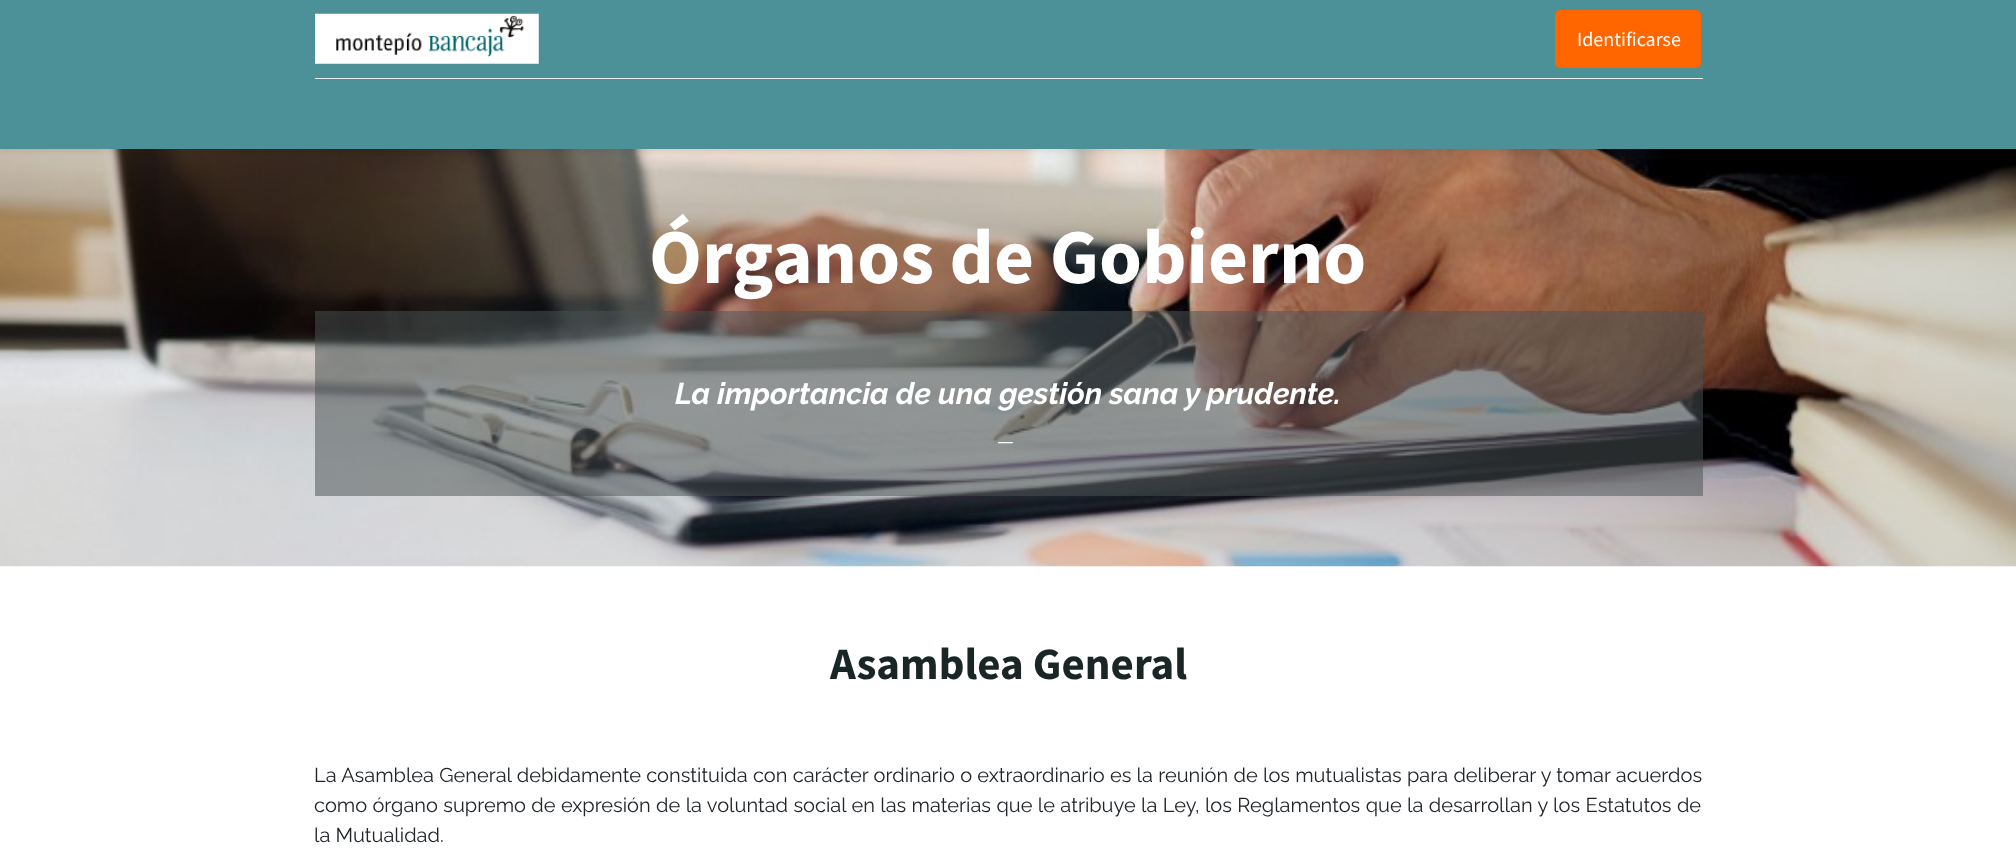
<svg xmlns="http://www.w3.org/2000/svg" width="2016" height="860">
	<rect width="100%" height="100%" fill="#FFFFFF" />
	<image x="0" y="149" width="2016" height="418" href="assets/img2.png" />
	<rect x="0" y="3" width="2016" height="148" fill="#000000" fill-opacity="0.07" filter="blur(2.5px)" />
	<rect x="0" y="0" width="2016" height="149" fill="#4C9098" />
	<image x="315" y="13" width="224" height="51" href="assets/img1.png" />
	<rect x="1558" y="13" width="140" height="52" rx="2" fill="#FF6600" stroke="#FF6600" stroke-width="6" />
	<text x="1577" y="46" font-family="Source Sans Pro" font-size="20" fill="#FFFFFF">Identificarse</text>
	<rect x="315" y="78" width="1388" height="1" fill="#E9ECEF" />
	<text x="649" y="283" font-family="Source Sans Pro" font-size="77.5" font-weight="700" fill="#FFFFFF">Órganos de Gobierno</text>
	<rect x="315" y="311" width="1388" height="185" fill="#4B5353" fill-opacity="0.52" />
	<text x="675" y="404" font-family="Raleway" font-size="30" font-weight="700" font-style="italic" fill="#FFFFFF">La importancia de una gestión sana y prudente.</text>
	<text x="997" y="448" font-family="Raleway" font-size="20" font-style="italic" fill="#FFFFFF">—</text>
	<text x="830" y="679" font-family="Source Sans Pro" font-size="45" font-weight="700" fill="#1A2626">Asamblea General</text>
	<g font-family="Raleway" font-size="20" fill="#212529">
		<text x="314" y="782" word-spacing="0.2">La Asamblea General debidamente constituida con carácter ordinario o extraordinario es la reunión de los mutualistas para deliberar y tomar acuerdos</text>
		<text x="314" y="812" word-spacing="0.3">como órgano supremo de expresión de la voluntad social en las materias que le atribuye la Ley, los Reglamentos que la desarrollan y los Estatutos de</text>
		<text x="314" y="842">la Mutualidad.</text>
	</g>
</svg>
